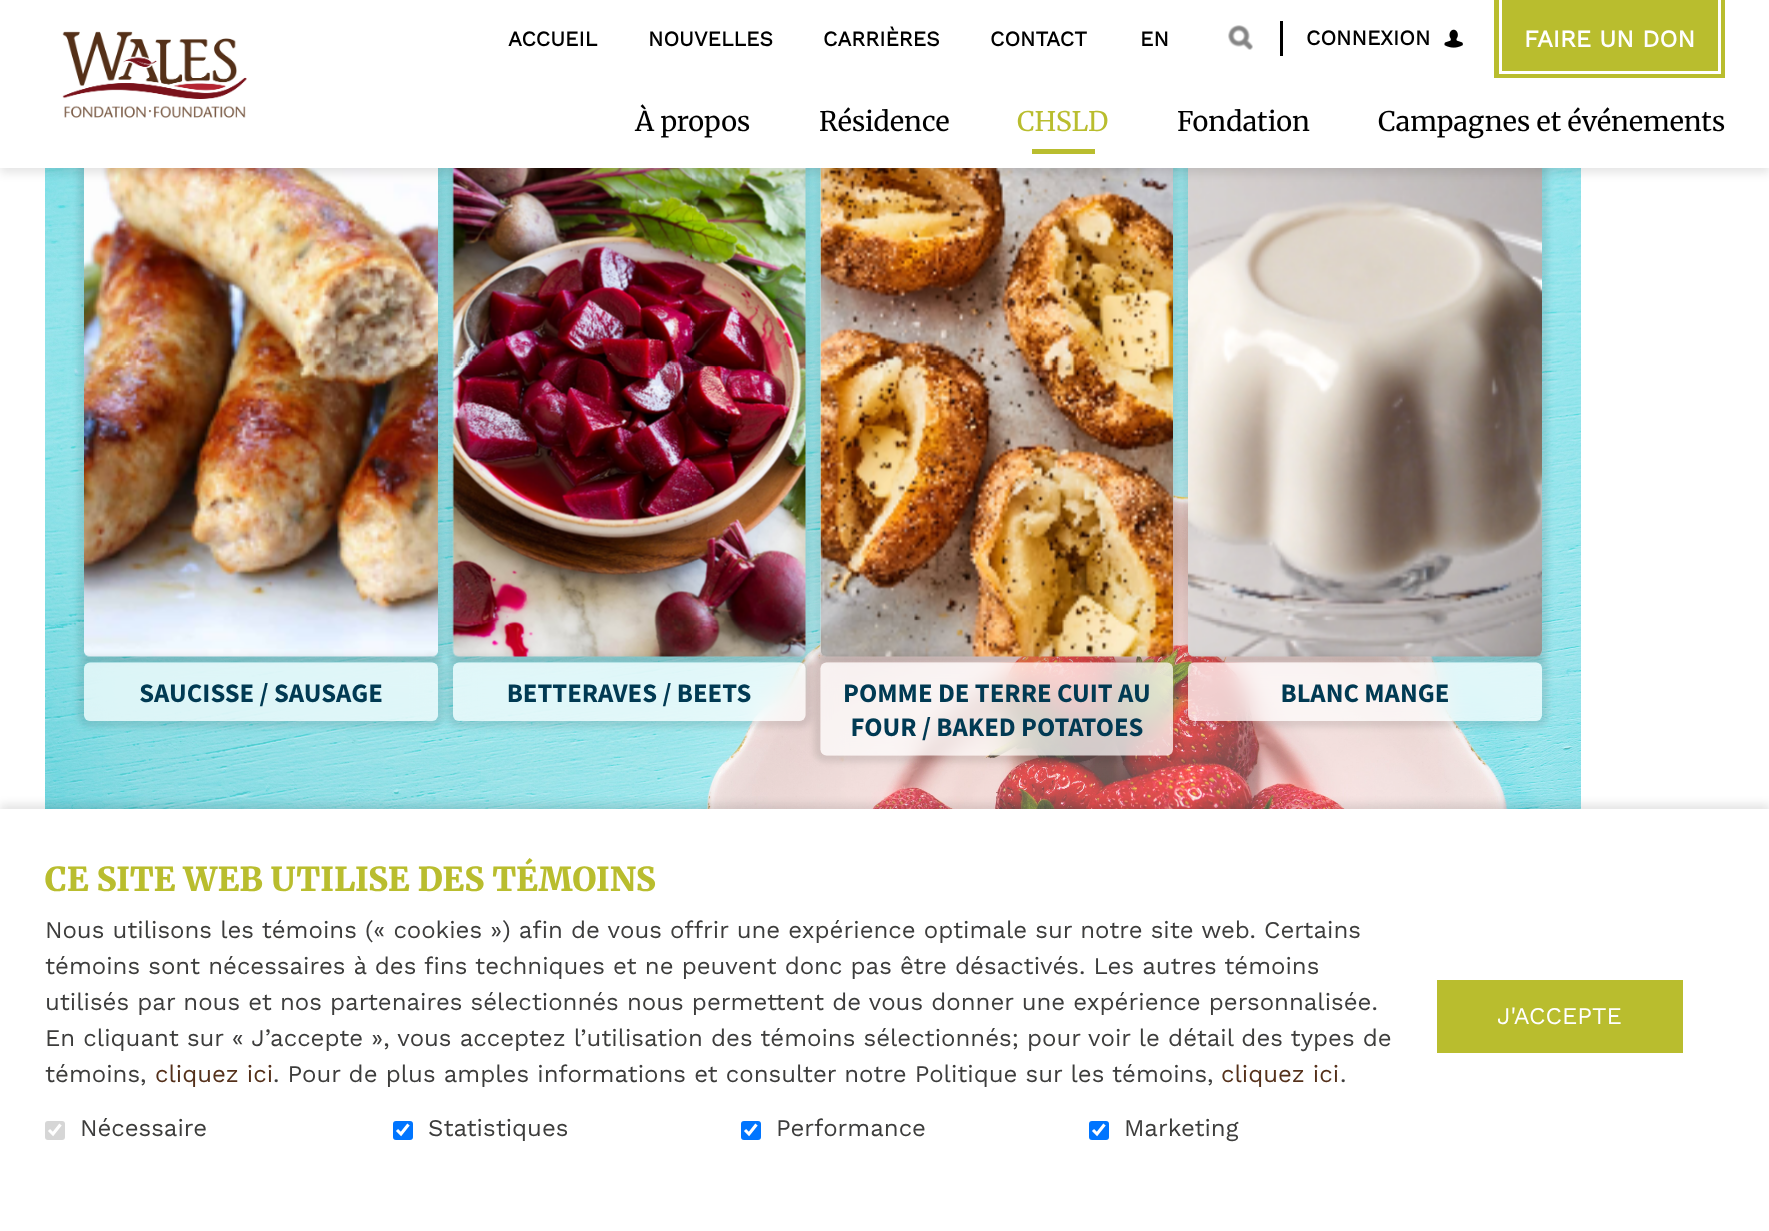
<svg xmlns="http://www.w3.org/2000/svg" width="1769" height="1231">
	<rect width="100%" height="100%" fill="#FFFFFF" />
	<image x="45" y="168" width="1536" height="641" href="assets/img4.png" />
	<rect x="0" y="5" width="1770" height="168" fill="#000000" fill-opacity="0.1" filter="blur(5px)" />
	<rect x="0" y="0" width="1769" height="168" fill="#FFFFFF" />
	<image x="62" y="31" width="185" height="87" href="assets/img1.png" />
	<g font-family="Work Sans" font-size="21" font-weight="700" fill="#000000">
		<text x="508" y="46">ACCUEIL</text>
		<text x="648" y="46">NOUVELLES</text>
		<text x="823" y="46">CARRIÈRES</text>
		<text x="990" y="46">CONTACT</text>
		<text x="1140" y="46">EN</text>
	</g>
	<image x="1228" y="25" width="25" height="25" href="assets/img2.png" />
	<rect x="1280" y="21" width="3" height="35" fill="#000000" />
	<text x="1306" y="45" font-family="Work Sans" font-size="21" font-weight="700" fill="#000000">CONNEXION</text>
	<image x="1444" y="29" width="19" height="19" href="assets/img3.png" />
	<rect x="1494" y="0" width="231" height="78" fill="#B9BD2E" />
	<rect x="1718" y="0" width="3" height="74" fill="#FFFFFF" />
	<rect x="1499" y="71" width="222" height="3" fill="#FFFFFF" />
	<rect x="1499" y="0" width="3" height="74" fill="#FFFFFF" />
	<text x="1524" y="47" font-family="Work Sans" font-size="24" font-weight="700" fill="#FFFFFF">FAIRE UN DON</text>
	<g font-family="Merriweather" font-size="27" fill="#000000">
		<text x="635" y="131">À propos</text>
		<text x="819" y="131">Résidence</text>
	</g>
	<text x="1017" y="131" font-family="Merriweather" font-size="27" fill="#B9BD2E">CHSLD</text>
	<rect x="1032" y="149" width="63" height="5" fill="#B9BD2E" />
	<g font-family="Merriweather" font-size="27" fill="#000000">
		<text x="1177" y="131">Fondation</text>
		<text x="1378" y="131">Campagnes et événements</text>
	</g>
	<rect x="0" y="804" width="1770" height="423" fill="#000000" fill-opacity="0.1" filter="blur(4.5px)" />
	<rect x="0" y="809" width="1769" height="422" fill="#FFFFFF" />
	<text x="45" y="891" font-family="Merriweather" font-size="33" font-weight="900" fill="#B9BD2E">CE SITE WEB UTILISE DES TÉMOINS</text>
	<g font-family="Work Sans" font-size="24" fill="#3D3D3C">
		<text x="45" y="938">Nous utilisons les témoins (« cookies ») afin de vous offrir une expérience optimale sur notre site web. Certains</text>
		<text x="45" y="974">témoins sont nécessaires à des fins techniques et ne peuvent donc pas être désactivés. Les autres témoins</text>
		<text x="45" y="1010">utilisés par nous et nos partenaires sélectionnés nous permettent de vous donner une expérience personnalisée.</text>
		<text x="45" y="1046">En cliquant sur « J’accepte », vous acceptez l’utilisation des témoins sélectionnés; pour voir le détail des types de</text>
		<text x="45" y="1082">témoins,</text>
	</g>
	<text x="155" y="1082" font-family="Work Sans" font-size="24" fill="#54301A">cliquez ici</text>
	<text x="273" y="1082" font-family="Work Sans" font-size="24" fill="#3D3D3C">. Pour de plus amples informations et consulter notre Politique sur les témoins,</text>
	<text x="1221" y="1082" font-family="Work Sans" font-size="24" fill="#54301A">cliquez ici</text>
	<text x="1340" y="1082" font-family="Work Sans" font-size="24" fill="#3D3D3C">.</text>
	<rect x="45" y="1121" width="20" height="19" rx="3" fill="#D6D6D6" />
	<path d="M49 1130L53 1134L60.5 1124.5" fill="none" stroke="#FFFFFF" stroke-width="3.1" />
	<text x="80" y="1136" font-family="Work Sans" font-size="24" fill="#3D3D3C">Nécessaire</text>
	<rect x="393" y="1121" width="20" height="19" rx="3" fill="#0075FF" />
	<path d="M397 1130L401 1134L408.5 1124.5" fill="none" stroke="#FFFFFF" stroke-width="3.1" />
	<text x="428" y="1136" font-family="Work Sans" font-size="24" fill="#3D3D3C">Statistiques</text>
	<rect x="741" y="1121" width="20" height="19" rx="3" fill="#0075FF" />
	<path d="M745 1130L749 1134L756.5 1124.5" fill="none" stroke="#FFFFFF" stroke-width="3.1" />
	<text x="776" y="1136" font-family="Work Sans" font-size="24" fill="#3D3D3C">Performance</text>
	<rect x="1089" y="1121" width="20" height="19" rx="3" fill="#0075FF" />
	<path d="M1093 1130L1097 1134L1104.5 1124.5" fill="none" stroke="#FFFFFF" stroke-width="3.1" />
	<text x="1124" y="1136" font-family="Work Sans" font-size="24" fill="#3D3D3C">Marketing</text>
	<rect x="1437" y="980" width="246" height="73" fill="#B9BD2E" />
	<text x="1497" y="1024" font-family="Work Sans" font-size="24" fill="#FFFFFF">J'ACCEPTE</text>
</svg>
